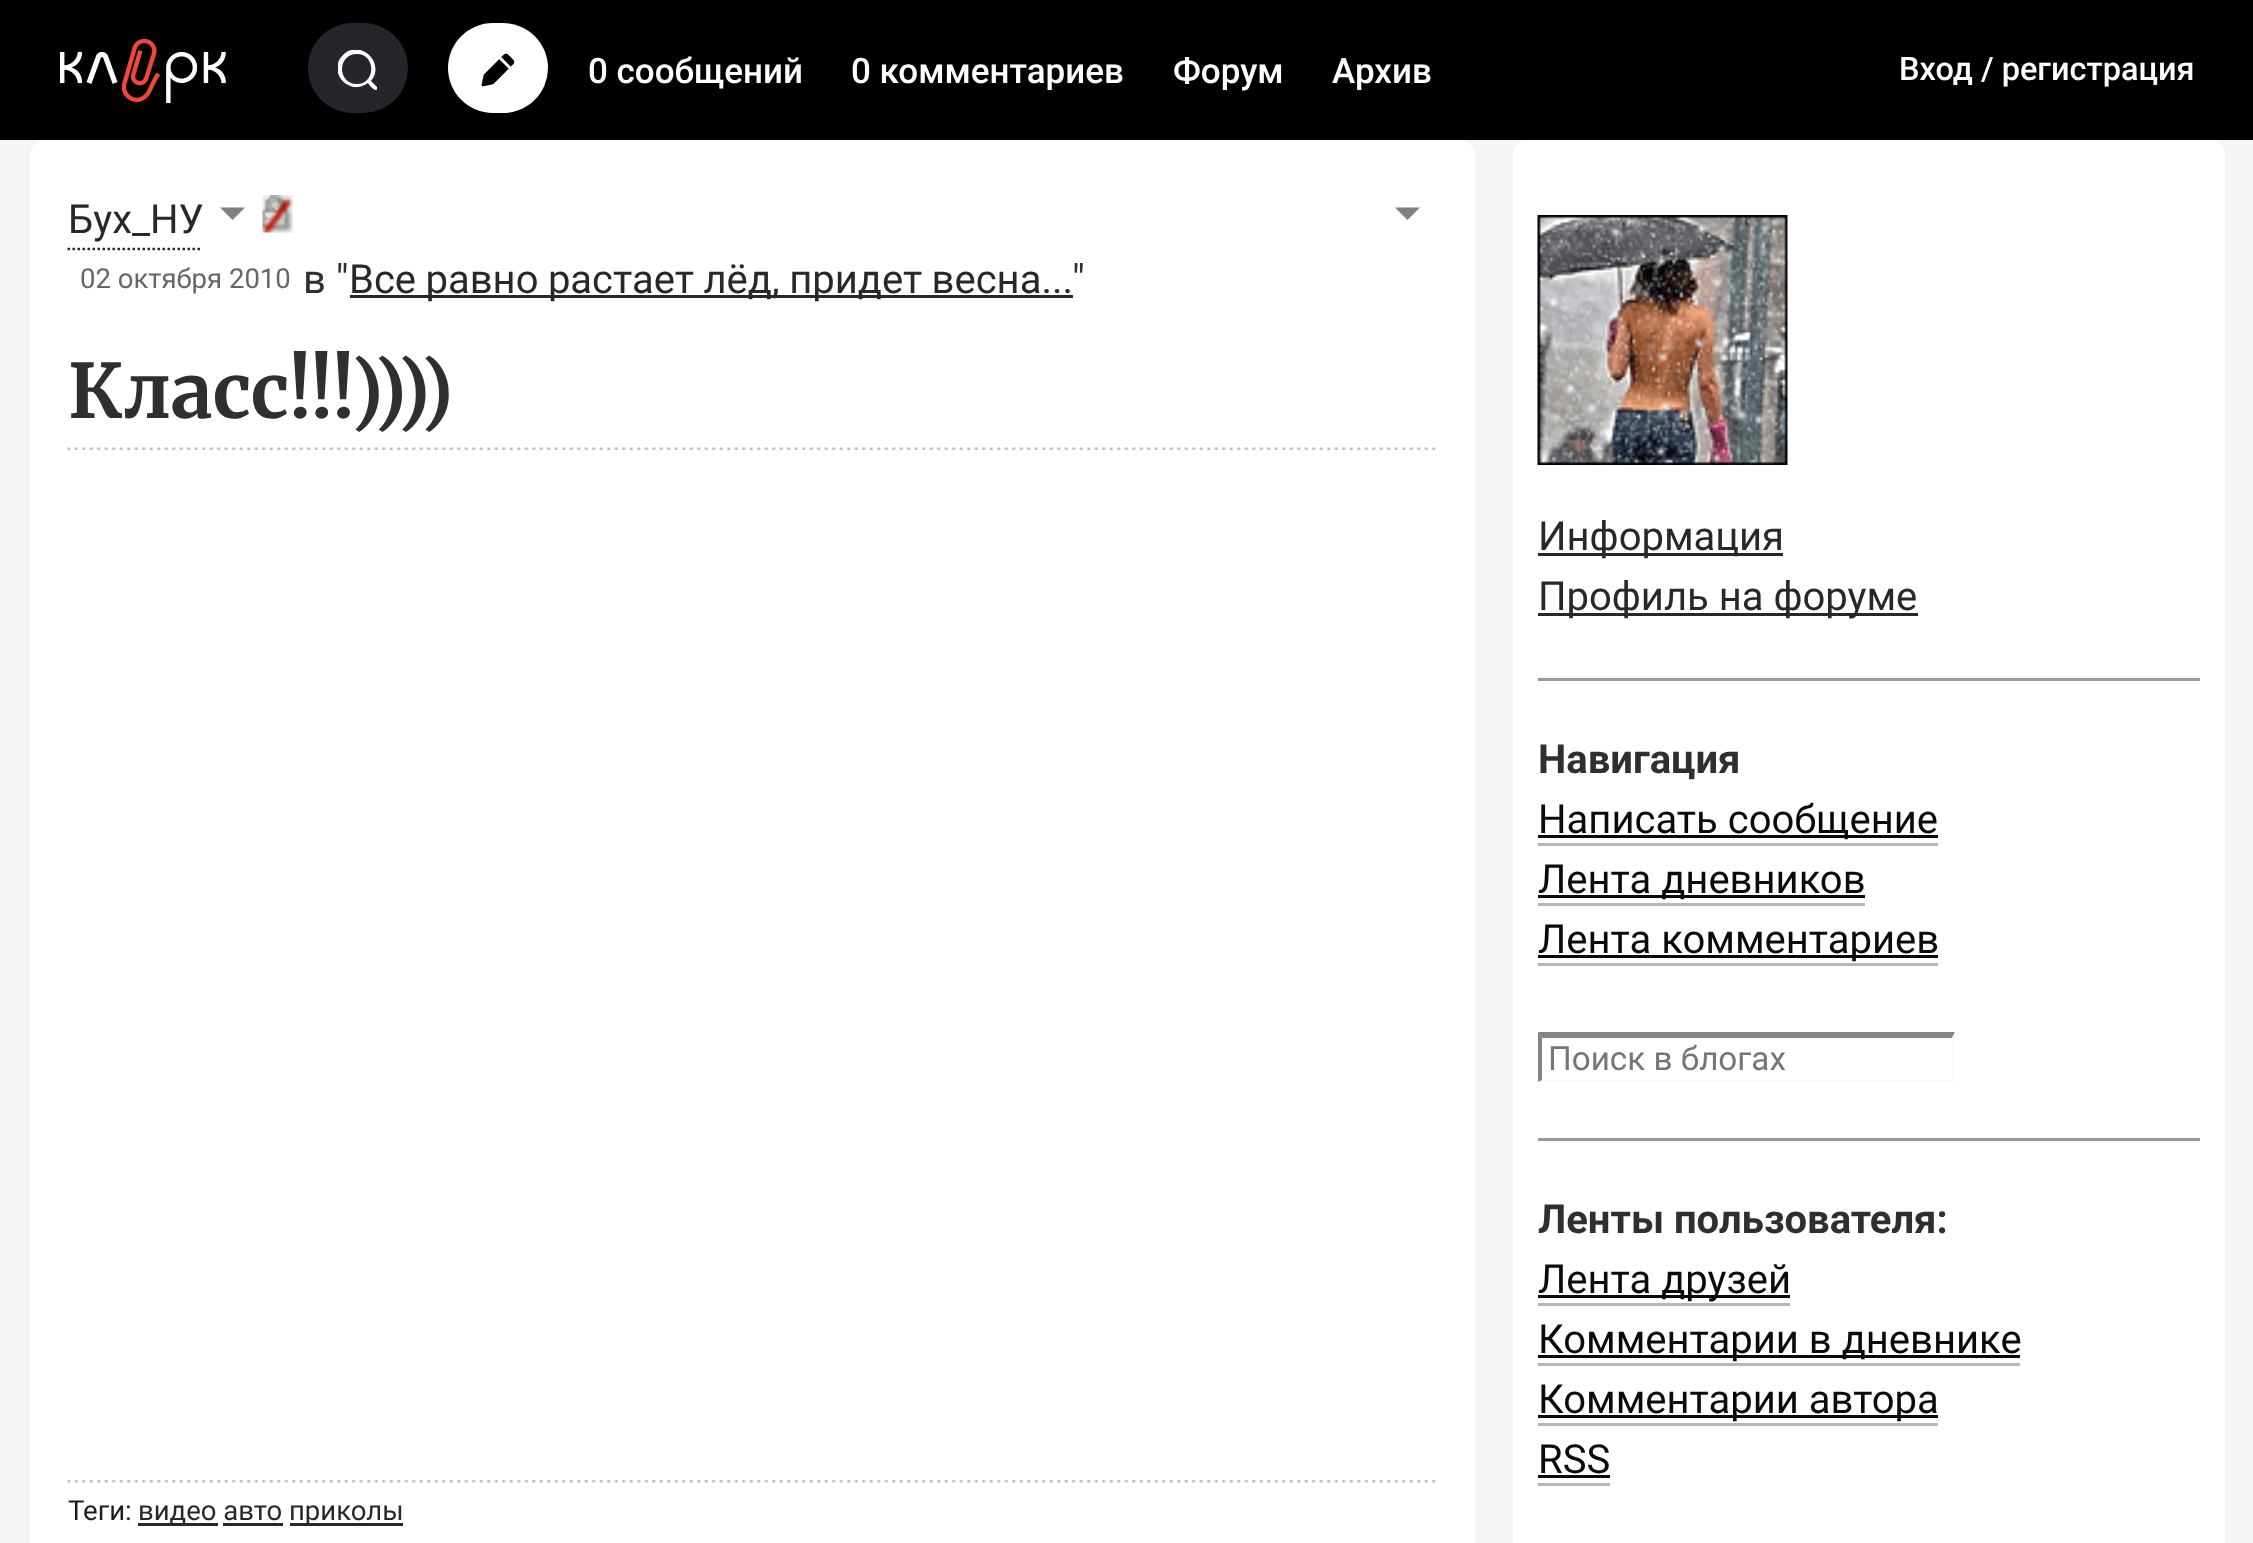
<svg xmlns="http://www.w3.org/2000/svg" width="2253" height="1543">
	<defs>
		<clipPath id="clip1"><rect x="338" y="50" width="40" height="40" /></clipPath>
	</defs>
	<rect width="100%" height="100%" fill="#F5F5F8" />
	<rect x="0" y="0" width="2253" height="140" fill="#000000" />
	<image x="60" y="38" width="166" height="66" href="assets/img1.png" />
	<rect x="308" y="23" width="100" height="90" rx="45" fill="#26252C" />
	<g clip-path="url(#clip1)">
		<path d="M377 87V89C376 93 369 85 368 83C350 97 326 72 343 55C360 38 386 63 371 81ZM357 54C337 54 337 84 357 84C376 84 376 54 357 54Z" fill="#FFFFFF" fill-rule="evenodd" />
	</g>
	<rect x="448" y="23" width="100" height="90" rx="45" fill="#FFFFFF" />
	<image x="481" y="53" width="34" height="34" href="assets/img2.png" />
	<g font-family="Roboto" font-size="35" font-weight="500" fill="#FFFFFF">
		<text x="588" y="83">0 сообщений</text>
		<text x="851" y="83">0 комментариев</text>
		<text x="1173" y="83">Форум</text>
		<text x="1332" y="83">Архив</text>
	</g>
	<text x="1899" y="80" font-family="Roboto" font-size="32.5" font-weight="500" fill="#FFFFFF">Вход / регистрация</text>
	<rect x="30" y="140" width="1445" height="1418" rx="15" fill="#FFFFFF" />
	<path d="M67.5 249H202.5" fill="none" stroke="#282828" stroke-width="2.5" stroke-dasharray="2.5 2.5" />
	<text x="68" y="233" font-family="Roboto" font-size="40" fill="#282828">Бух_НУ</text>
	<path d="M220 207.5H245L232.5 220Z" fill="#808080" />
	<image x="262" y="195" width="31" height="38" href="assets/img3.png" />
	<path d="M1395 207.5H1420L1407.5 220Z" fill="#808080" />
	<text x="80" y="288" font-family="Roboto" font-size="27.5" fill="#666666">02 октября 2010</text>
	<text x="303" y="293" font-family="Roboto" font-size="40" fill="#2F2F2F">в "</text>
	<rect x="350" y="295" width="723" height="3" fill="#282828" />
	<text x="349" y="293" word-spacing="-0.5" font-family="Roboto" font-size="40" fill="#282828">Все равно растает лёд, придет весна...</text>
	<text x="1072" y="293" font-family="Roboto" font-size="40" fill="#2F2F2F">"</text>
	<text x="68" y="418" font-family="Merriweather" font-size="75" font-weight="300" fill="#2F2F2F">Класс!!!))))</text>
	<image x="67" y="447" width="1369" height="3" href="assets/img4.png" />
	<image x="67" y="1480" width="1369" height="3" href="assets/img5.png" />
	<text x="68" y="1520" font-family="Roboto" font-size="27.5" fill="#1D1D1D">Теги:</text>
	<rect x="138" y="1523" width="80" height="3" fill="#282828" />
	<text x="138" y="1520" font-family="Roboto" font-size="27.5" fill="#282828">видео авто</text>
	<rect x="223" y="1523" width="60" height="3" fill="#282828" />
	<rect x="290" y="1523" width="113" height="3" fill="#282828" />
	<text x="289" y="1520" font-family="Roboto" font-size="27.5" fill="#282828">приколы</text>
	<rect x="1513" y="140" width="712" height="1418" rx="15" fill="#FFFFFF" />
	<image x="1537" y="215" width="251" height="250" href="assets/img6.png" />
	<rect x="1538" y="553" width="245" height="3" fill="#282828" />
	<text x="1538" y="550" font-family="Roboto" font-size="40" fill="#282828">Информация</text>
	<rect x="1538" y="613" width="380" height="3" fill="#282828" />
	<text x="1538" y="610" font-family="Roboto" font-size="40" fill="#282828">Профиль на форуме</text>
	<rect x="1538" y="678" width="662" height="3" fill="#999999" />
	<text x="1538" y="773" font-family="Roboto" font-size="40" font-weight="700" fill="#2F2F2F">Навигация</text>
	<rect x="1538" y="835" width="400" height="3" fill="#0A0A0A" />
	<text x="1538" y="833" font-family="Roboto" font-size="40" fill="#0A0A0A">Написать сообщение</text>
	<rect x="1538" y="843" width="400" height="3" fill="#B6B6B6" />
	<rect x="1538" y="895" width="327" height="3" fill="#0A0A0A" />
	<text x="1538" y="893" font-family="Roboto" font-size="40" fill="#0A0A0A">Лента дневников</text>
	<rect x="1538" y="903" width="327" height="3" fill="#B6B6B6" />
	<rect x="1538" y="955" width="400" height="3" fill="#0A0A0A" />
	<text x="1538" y="953" font-family="Roboto" font-size="40" fill="#0A0A0A">Лента комментариев</text>
	<rect x="1538" y="963" width="400" height="3" fill="#B6B6B6" />
	<path d="M1538 1032H1955L1952 1038H1542Z" fill="#848484" />
	<path d="M1955 1032V1082L1952 1080V1038Z" fill="#FAFAFA" />
	<path d="M1955 1082H1538L1542 1080H1952Z" fill="#FAFAFA" />
	<path d="M1538 1082V1032L1542 1038V1080Z" fill="#848484" />
	<text x="1548" y="1070" font-family="Roboto" font-size="33.25" fill="#757575">Поиск в блогах</text>
	<rect x="1538" y="1138" width="662" height="3" fill="#999999" />
	<text x="1538" y="1233" font-family="Roboto" font-size="40" font-weight="700" fill="#2F2F2F">Ленты пользователя:</text>
	<rect x="1538" y="1295" width="252" height="3" fill="#0A0A0A" />
	<text x="1538" y="1293" font-family="Roboto" font-size="40" fill="#0A0A0A">Лента друзей</text>
	<rect x="1538" y="1303" width="252" height="3" fill="#B6B6B6" />
	<rect x="1538" y="1355" width="482" height="3" fill="#0A0A0A" />
	<text x="1538" y="1353" font-family="Roboto" font-size="40" fill="#0A0A0A">Комментарии в дневнике</text>
	<rect x="1538" y="1363" width="482" height="3" fill="#B6B6B6" />
	<rect x="1538" y="1415" width="400" height="3" fill="#0A0A0A" />
	<text x="1538" y="1413" font-family="Roboto" font-size="40" fill="#0A0A0A">Комментарии автора</text>
	<rect x="1538" y="1423" width="400" height="3" fill="#B6B6B6" />
	<text x="1538" y="1473" font-family="Roboto" font-size="40" fill="#0A0A0A">RSS</text>
	<rect x="1538" y="1483" width="72" height="3" fill="#B6B6B6" />
	<rect x="1538" y="1475" width="72" height="3" fill="#0A0A0A" />
</svg>
